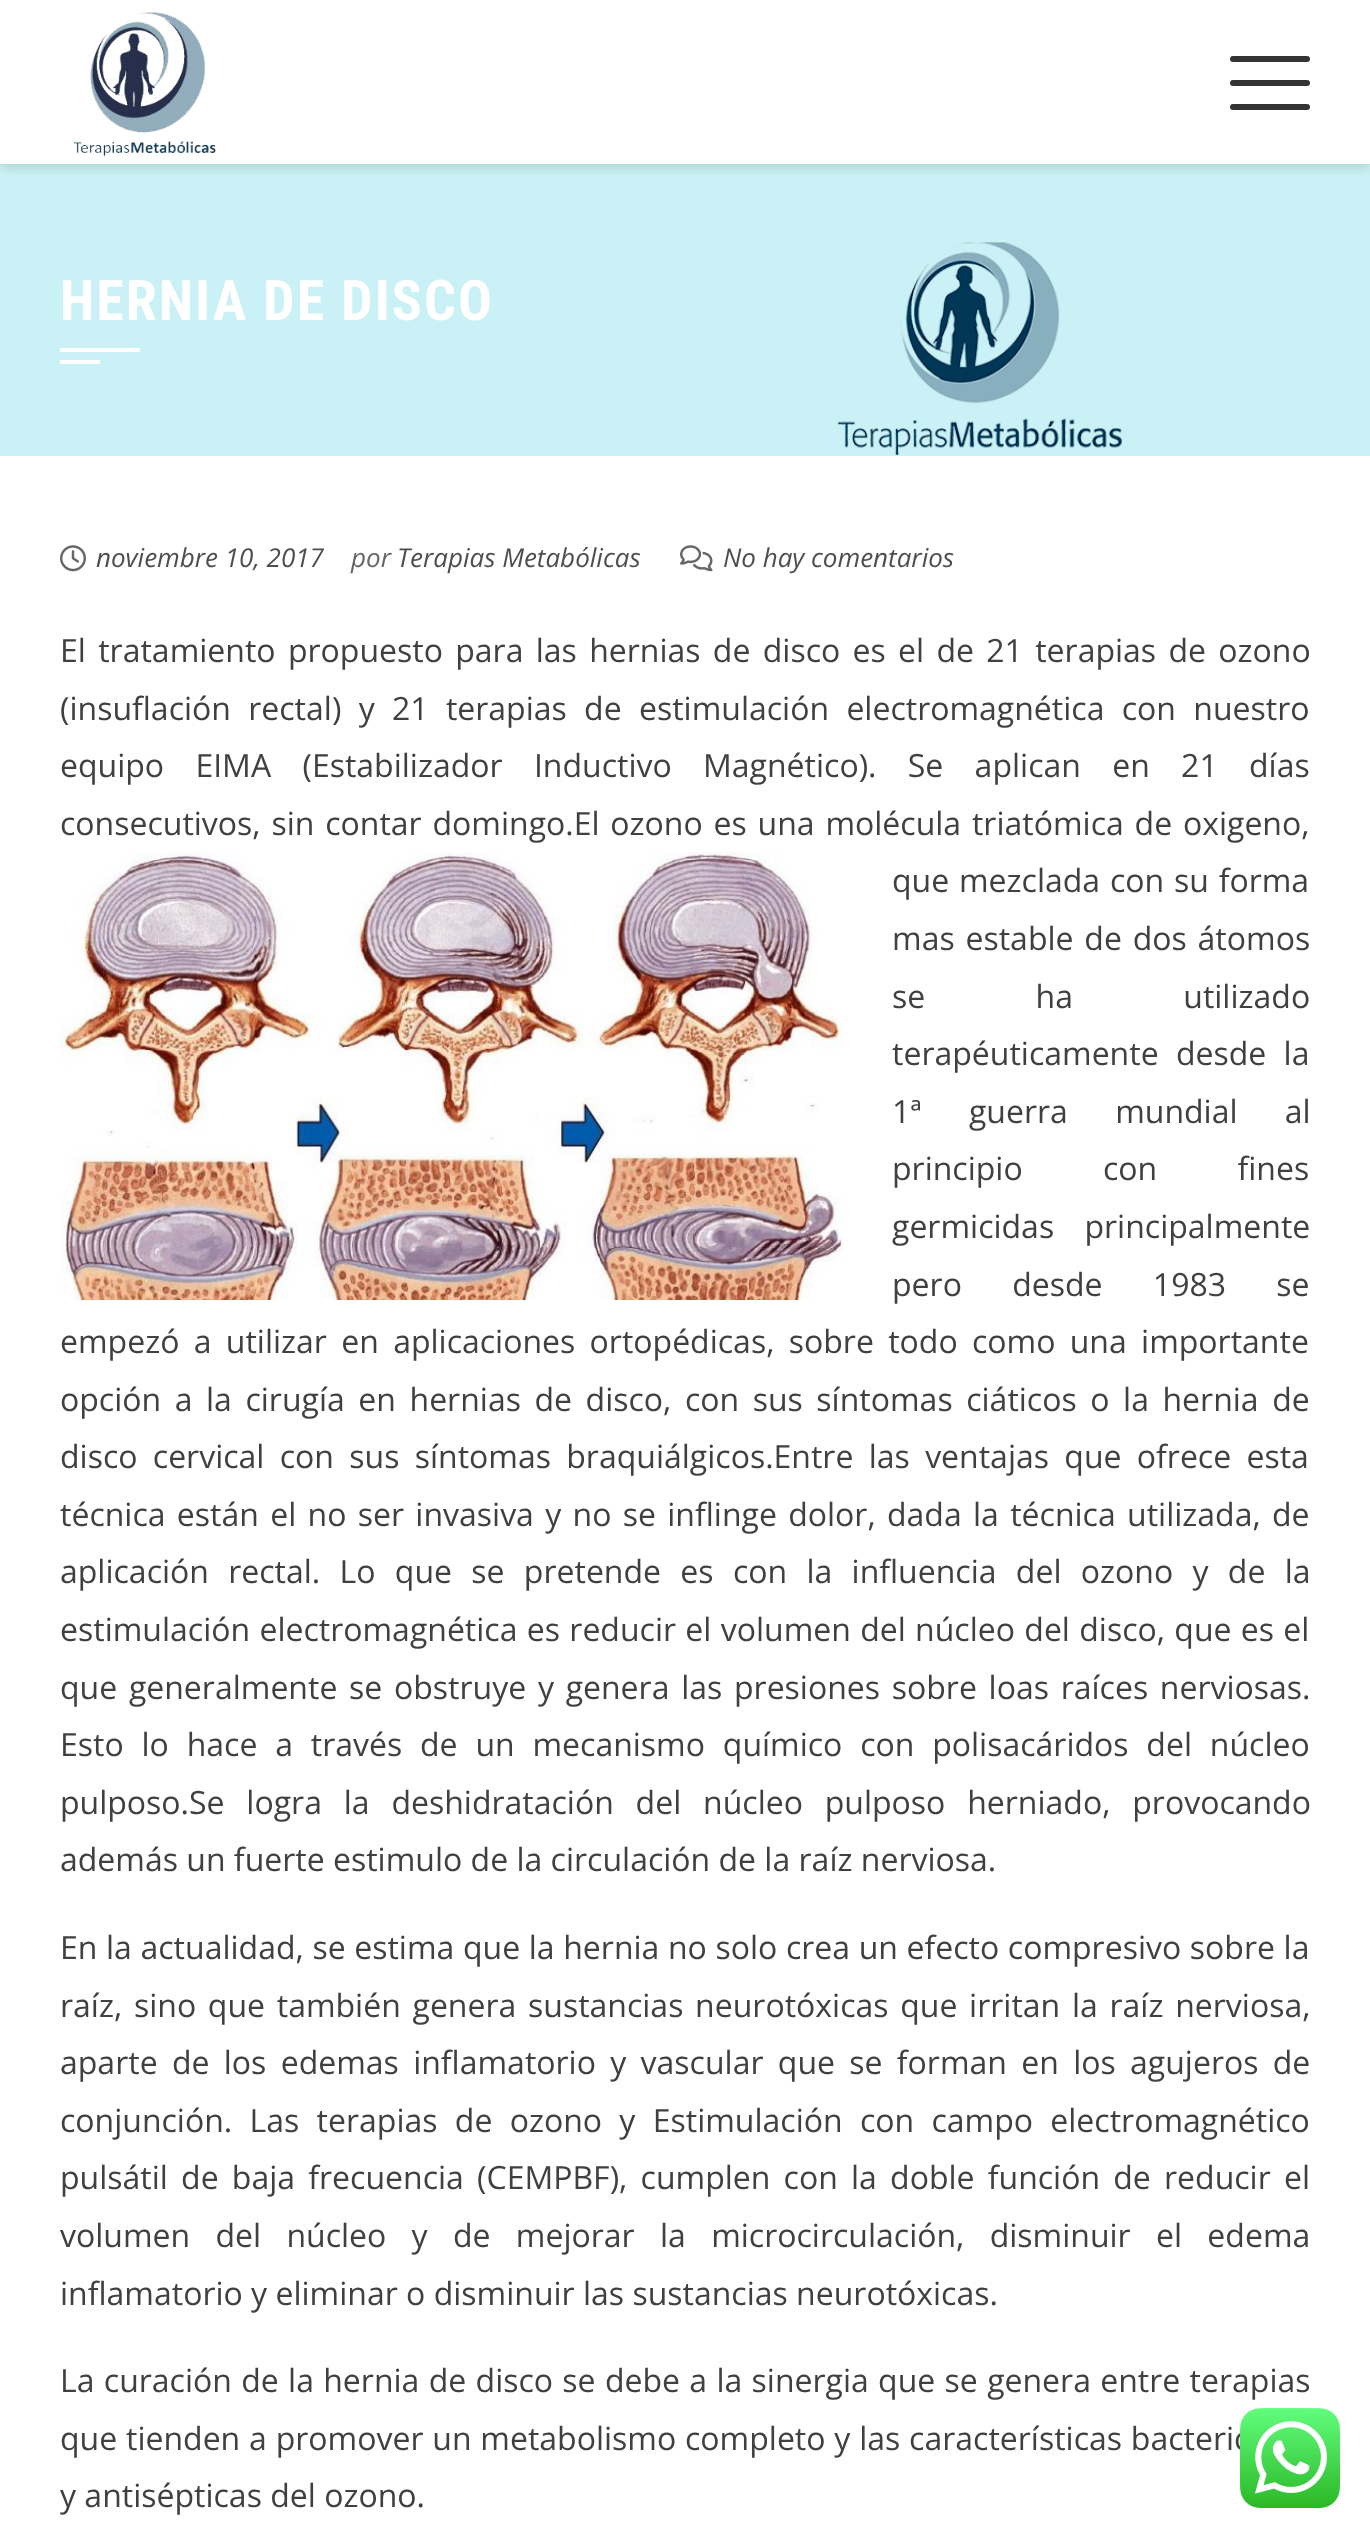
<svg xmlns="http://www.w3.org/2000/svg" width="1370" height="2538">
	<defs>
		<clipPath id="clip1"><rect x="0" y="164" width="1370" height="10" /></clipPath>
	</defs>
	<rect width="100%" height="100%" fill="#FFFFFF" />
	<image x="0" y="164" width="1370" height="292" href="assets/img2.png" />
	<g clip-path="url(#clip1)">
		<rect x="0" y="0" width="1370" height="164" fill="#000000" fill-opacity="0.2" filter="blur(8px)" />
	</g>
	<image x="73" y="12" width="143" height="145" href="assets/img1.png" />
	<rect x="1230" y="80" width="80" height="6" rx="3" fill="#333333" />
	<rect x="1230" y="56" width="80" height="6" rx="3" fill="#333333" />
	<rect x="1230" y="104" width="80" height="6" rx="3" fill="#333333" />
	<text x="60" y="320" font-family="Roboto Condensed" font-size="56" font-weight="700" letter-spacing="2" fill="#FFFFFF">HERNIA DE DISCO</text>
	<rect x="60" y="348" width="80" height="4" fill="#FFFFFF" />
	<rect x="60" y="360" width="40" height="4" fill="#FFFFFF" />
	<image x="60" y="545" width="26" height="27" href="assets/img3.png" />
	<text x="96" y="567" font-family="Open Sans" font-size="26" font-style="italic" fill="#4E4E4E">noviembre 10, 2017</text>
	<text x="351" y="567" font-family="Open Sans" font-size="26" font-style="italic" fill="#666666">por</text>
	<text x="397" y="567" font-family="Open Sans" font-size="26" font-style="italic" fill="#4E4E4E">Terapias Metabólicas</text>
	<image x="680" y="545" width="33" height="27" href="assets/img4.png" />
	<text x="723" y="567" font-family="Open Sans" font-size="26" font-style="italic" fill="#4E4E4E">No hay comentarios</text>
	<g font-family="Open Sans" font-size="32" fill="#404040">
		<text x="60" y="662" word-spacing="4">El tratamiento propuesto para las hernias de disco es el de 21 terapias de ozono</text>
		<text x="60" y="720" word-spacing="9">(insuflación rectal) y 21 terapias de estimulación electromagnética con nuestro</text>
		<text x="60" y="777" word-spacing="23">equipo EIMA (Estabilizador Inductivo Magnético). Se aplican en 21 días</text>
		<text x="60" y="835" word-spacing="2.5">consecutivos, sin contar domingo.El ozono es una molécula triatómica de oxigeno,</text>
	</g>
	<image x="60" y="852" width="784" height="448" href="assets/img5.png" />
	<g font-family="Open Sans" font-size="32" fill="#404040">
		<text x="892" y="892" word-spacing="1.5">que mezclada con su forma</text>
		<text x="892" y="950" word-spacing="2.5">mas estable de dos átomos</text>
		<text x="892" y="1008" word-spacing="102">se ha utilizado</text>
		<text x="892" y="1065" word-spacing="9">terapéuticamente desde la</text>
		<text x="892" y="1123" word-spacing="39">1ª guerra mundial al</text>
		<text x="892" y="1180" word-spacing="72">principio con fines</text>
		<text x="892" y="1238" word-spacing="22">germicidas principalmente</text>
		<text x="892" y="1296" word-spacing="42">pero desde 1983 se</text>
		<text x="60" y="1353" word-spacing="6">empezó a utilizar en aplicaciones ortopédicas, sobre todo como una importante</text>
		<text x="60" y="1411" word-spacing="5.25">opción a la cirugía en hernias de disco, con sus síntomas ciáticos o la hernia de</text>
		<text x="60" y="1468" word-spacing="7">disco cervical con sus síntomas braquiálgicos.Entre las ventajas que ofrece esta</text>
		<text x="60" y="1526" word-spacing="3">técnica están el no ser invasiva y no se inflinge dolor, dada la técnica utilizada, de</text>
		<text x="60" y="1583" word-spacing="11">aplicación rectal. Lo que se pretende es con la influencia del ozono y de la</text>
		<text x="60" y="1641" word-spacing="1">estimulación electromagnética es reducir el volumen del núcleo del disco, que es el</text>
		<text x="60" y="1699" word-spacing="3.4">que generalmente se obstruye y genera las presiones sobre loas raíces nerviosas.</text>
		<text x="60" y="1756" word-spacing="9.5">Esto lo hace a través de un mecanismo químico con polisacáridos del núcleo</text>
		<text x="60" y="1814" word-spacing="13.5">pulposo.Se logra la deshidratación del núcleo pulposo herniado, provocando</text>
		<text x="60" y="1871">además un fuerte estimulo de la circulación de la raíz nerviosa.</text>
		<text x="60" y="1959" word-spacing="0.3">En la actualidad, se estima que la hernia no solo crea un efecto compresivo sobre la</text>
		<text x="60" y="2017" word-spacing="3.4">raíz, sino que también genera sustancias neurotóxicas que irritan la raíz nerviosa,</text>
		<text x="60" y="2074" word-spacing="6">aparte de los edemas inflamatorio y vascular que se forman en los agujeros de</text>
		<text x="60" y="2132" word-spacing="9">conjunción. Las terapias de ozono y Estimulación con campo electromagnético</text>
		<text x="60" y="2189" word-spacing="4.9">pulsátil de baja frecuencia (CEMPBF), cumplen con la doble función de reducir el</text>
		<text x="60" y="2247" word-spacing="17">volumen del núcleo y de mejorar la microcirculación, disminuir el edema</text>
		<text x="60" y="2305">inflamatorio y eliminar o disminuir las sustancias neurotóxicas.</text>
		<text x="60" y="2392" word-spacing="1">La curación de la hernia de disco se debe a la sinergia que se genera entre terapias</text>
		<text x="60" y="2450" word-spacing="0.5">que tienden a promover un metabolismo completo y las características bacteric</text>
		<text x="60" y="2507">y antisépticas del ozono.</text>
	</g>
	<image x="1240" y="2408" width="100" height="100" href="assets/img6.png" />
</svg>
